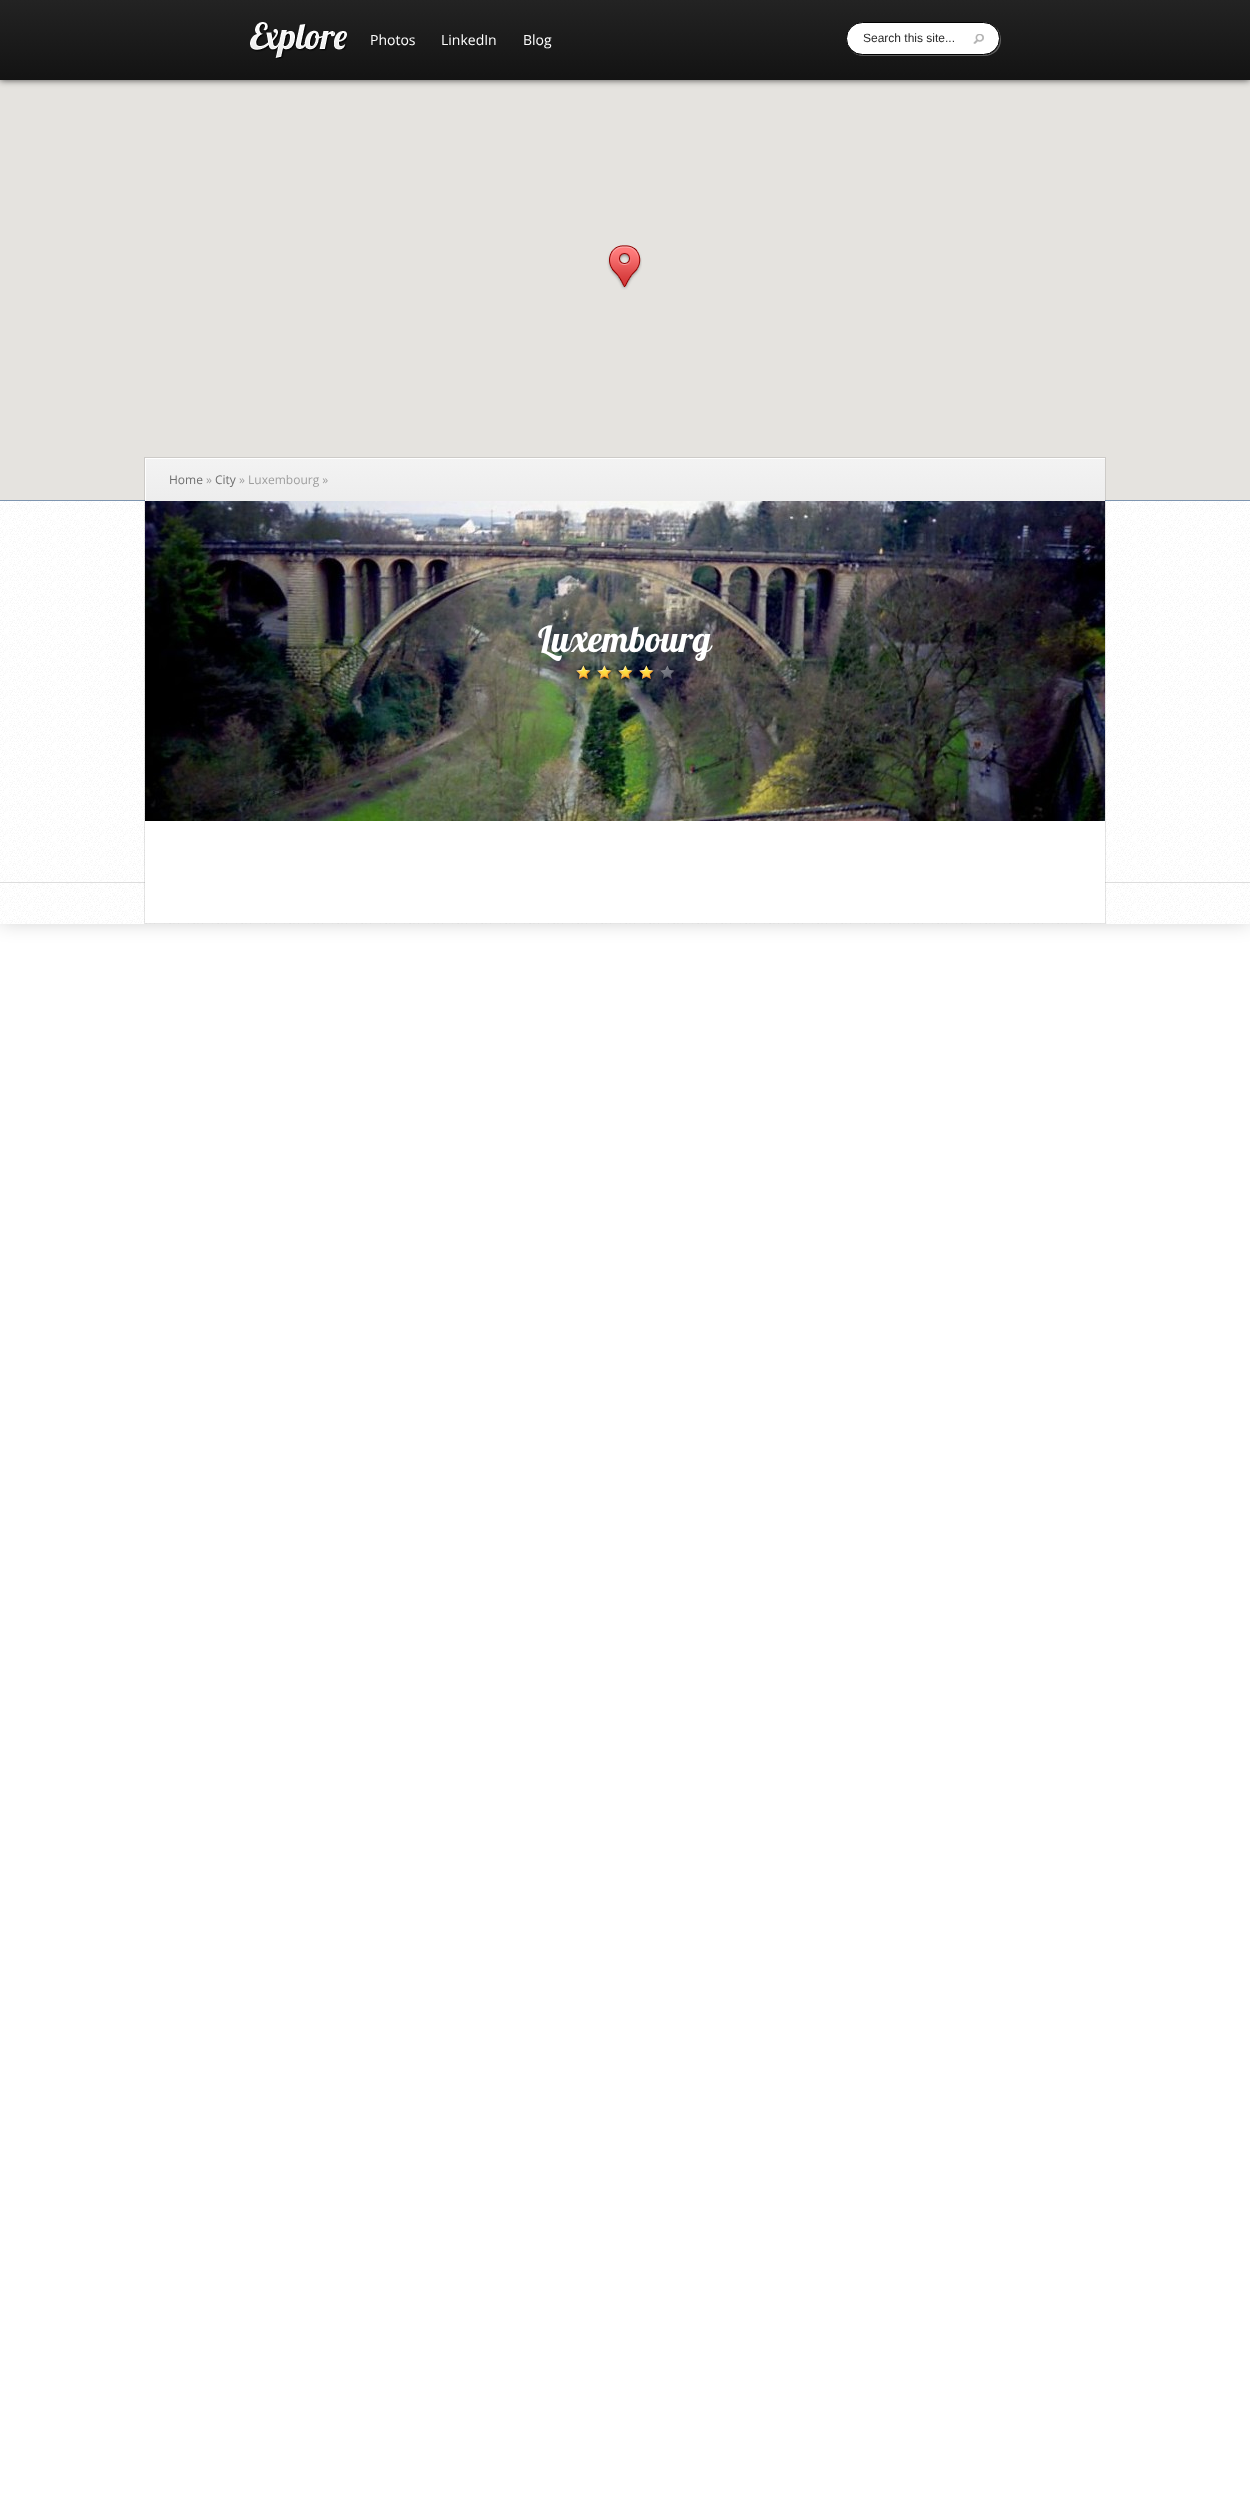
<svg xmlns="http://www.w3.org/2000/svg" width="1250" height="2512">
	<style>*{font-kerning:none!important;font-variant-ligatures:none!important}</style>
	<defs>
		<linearGradient id="g1" gradientUnits="userSpaceOnUse" x1="625" y1="0" x2="625" y2="80"><stop offset="0" stop-color="#232323" /><stop offset="1" stop-color="#131313" /></linearGradient>
		<linearGradient id="g2" gradientUnits="userSpaceOnUse" x1="626" y1="459" x2="626" y2="501"><stop offset="0" stop-color="#F3F3F3" /><stop offset="1" stop-color="#EDEDED" /></linearGradient>
	</defs>
	<rect width="100%" height="100%" fill="#FFFFFF" />
	<rect x="0" y="498" width="1250" height="424" fill="#000000" fill-opacity="0.2" filter="blur(10px)" />
	<rect x="0" y="80" width="1250" height="420" fill="#E5E3DF" />
	<rect x="0" y="0" width="1250" height="80" fill="#000000" fill-opacity="0.7" filter="blur(3.5px)" />
	<rect x="0" y="0" width="1250" height="80" fill="url(#g1)" />
	<image x="250" y="22" width="97" height="37" href="assets/img1.png" />
	<g font-family="Open Sans" font-size="14" fill="#FFFFFF">
		<text x="370" y="45">Photos</text>
		<text x="441" y="45">LinkedIn</text>
		<text x="523" y="45">Blog</text>
	</g>
	<path d="M851 51C854 54 859 56 864 56H984C994 56 1001 49 1001 40C1001 35 999 30 996 27C998 30 1000 34 1000 38C1000 48 993 55 984 55H862C858 55 854 53 851 51Z" fill="#FFFFFF" fill-opacity="0.3" />
	<rect x="846.5" y="22.5" width="153" height="32" rx="16" fill="#FFFFFF" stroke="#000000" />
	<text x="863" y="42" font-family="Liberation Sans" font-size="12" fill="#2A2A2A">Search this site...</text>
	<image x="973" y="34" width="11" height="10" href="assets/img2.png" />
	<image x="607" y="245" width="35" height="45" href="assets/img3.png" />
	<image x="0" y="501" width="1250" height="423" href="assets/img4.png" />
	<rect x="0" y="500" width="1250" height="1" fill="#7E95B0" />
	<rect x="0" y="882" width="1250" height="1" fill="#DDDDDD" />
	<rect x="144.5" y="457.5" width="961" height="466" fill="none" stroke="#000000" stroke-opacity="0.1" />
	<rect x="146" y="459" width="959" height="42" fill="url(#g2)" />
	<rect x="145" y="458" width="960" height="1" fill="#FFFFFF" />
	<rect x="145" y="458" width="1" height="43" fill="#FFFFFF" />
	<text x="169" y="484" font-family="Open Sans" font-size="12" fill="#6E6E6E">Home</text>
	<text x="206" y="484" font-family="Open Sans" font-size="12" fill="#9E9E9E">»</text>
	<text x="215" y="484" font-family="Open Sans" font-size="12" fill="#6E6E6E">City</text>
	<text x="239" y="484" font-family="Open Sans" font-size="12" fill="#9E9E9E">» Luxembourg »</text>
	<image x="145" y="501" width="960" height="320" href="assets/img5.png" />
	<text x="538" y="652" font-family="Lobster" font-size="36" fill="#FFFFFF">Luxembourg</text>
	<image x="576" y="665" width="99" height="15" href="assets/img6.png" />
	<image x="575" y="664" width="80" height="17" href="assets/img7.png" />
	<rect x="145" y="821" width="960" height="102" fill="#FFFFFF" />
</svg>
